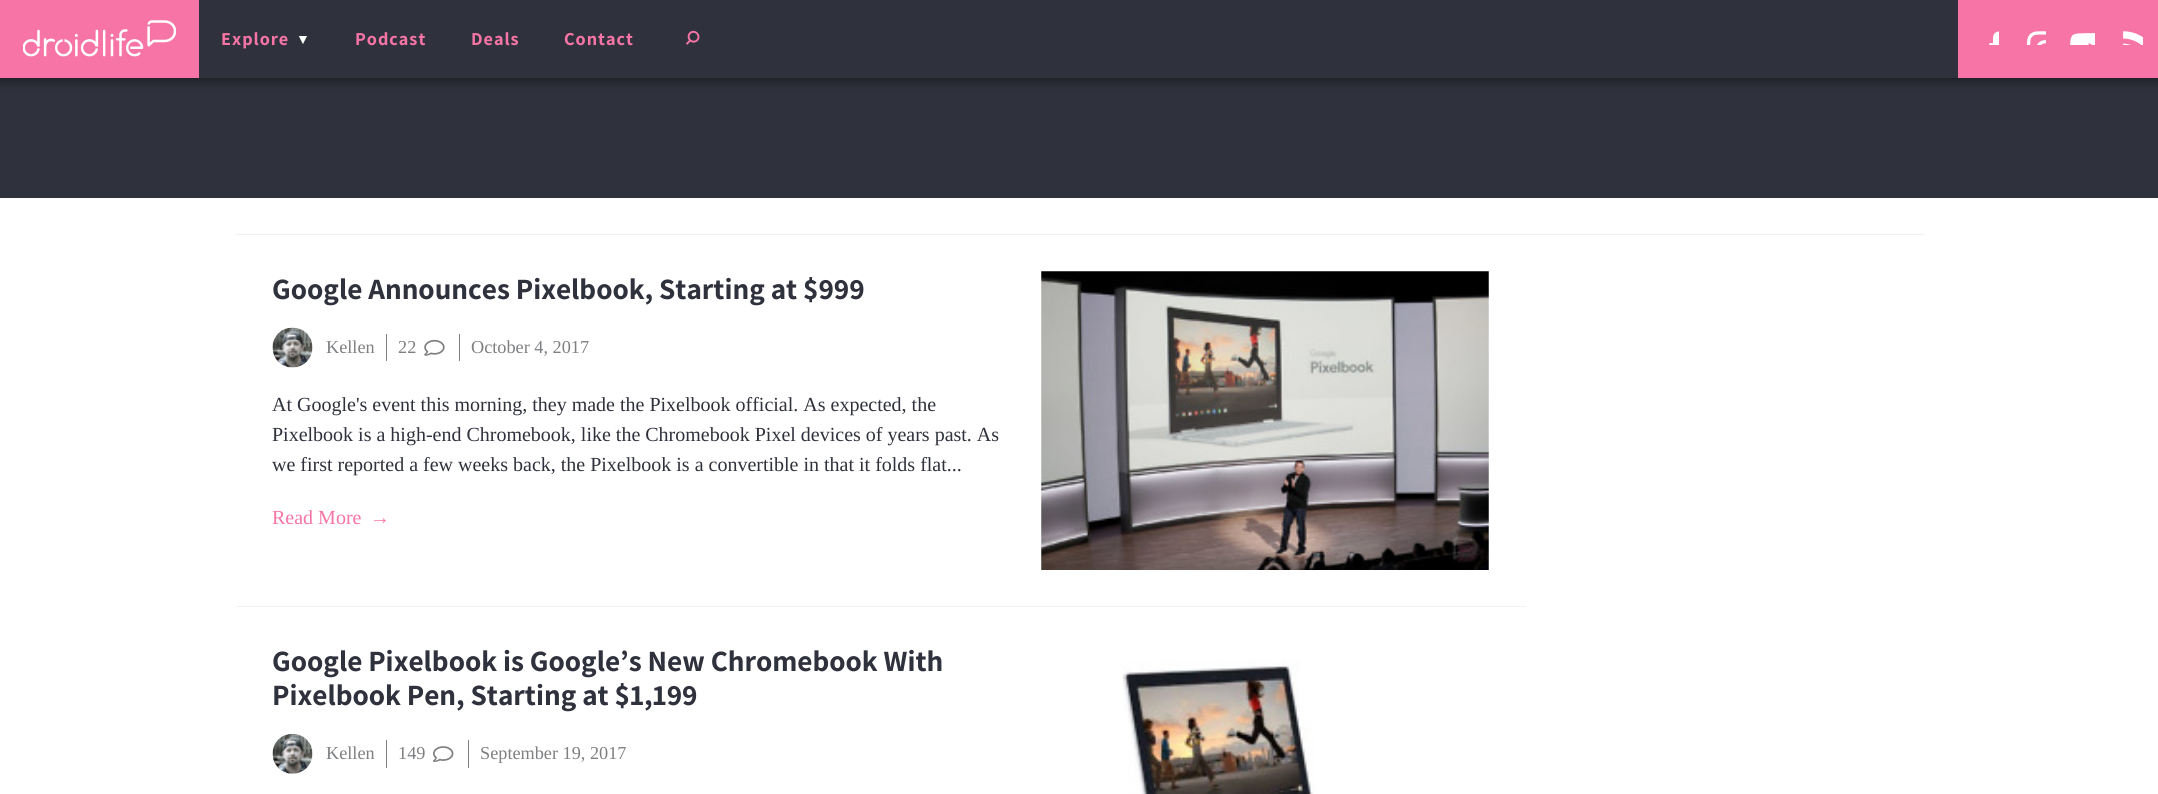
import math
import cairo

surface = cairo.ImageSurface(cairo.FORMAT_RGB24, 2158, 794)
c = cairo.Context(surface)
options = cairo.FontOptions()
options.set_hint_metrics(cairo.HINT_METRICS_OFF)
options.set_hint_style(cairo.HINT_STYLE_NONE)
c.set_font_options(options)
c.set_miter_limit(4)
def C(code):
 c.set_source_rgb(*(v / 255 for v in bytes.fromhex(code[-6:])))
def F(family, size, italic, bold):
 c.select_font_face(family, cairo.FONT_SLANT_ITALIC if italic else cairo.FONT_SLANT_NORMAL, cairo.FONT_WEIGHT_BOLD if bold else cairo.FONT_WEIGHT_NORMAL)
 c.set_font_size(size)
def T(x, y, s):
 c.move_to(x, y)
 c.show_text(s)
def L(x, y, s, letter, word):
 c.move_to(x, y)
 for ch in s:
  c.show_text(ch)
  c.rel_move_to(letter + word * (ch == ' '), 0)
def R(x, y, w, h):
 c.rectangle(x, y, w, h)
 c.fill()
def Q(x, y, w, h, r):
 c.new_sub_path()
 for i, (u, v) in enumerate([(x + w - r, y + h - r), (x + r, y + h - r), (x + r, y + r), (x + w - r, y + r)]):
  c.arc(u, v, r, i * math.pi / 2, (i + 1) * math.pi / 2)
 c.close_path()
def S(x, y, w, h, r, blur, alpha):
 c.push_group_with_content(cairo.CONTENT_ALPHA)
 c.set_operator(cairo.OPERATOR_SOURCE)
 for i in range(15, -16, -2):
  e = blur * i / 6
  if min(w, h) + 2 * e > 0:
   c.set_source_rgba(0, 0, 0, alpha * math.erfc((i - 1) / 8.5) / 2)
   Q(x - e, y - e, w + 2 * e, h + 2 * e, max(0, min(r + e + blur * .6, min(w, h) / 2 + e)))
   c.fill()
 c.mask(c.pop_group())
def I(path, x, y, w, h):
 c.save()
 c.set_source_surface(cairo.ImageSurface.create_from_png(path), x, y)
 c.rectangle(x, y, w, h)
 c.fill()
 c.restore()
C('ffffff')
c.paint()
C('2f313c')
R(0,78,2158,120)
C('000000')
S(-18,-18,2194,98,0,6,.5)
C('f674a6')
R(0,0,199,78)
I('1.png',23,20,153,37)
C('2f313c')
R(199,0,1759,78)
F('Assistant ExtraLight',18.25,0,0)
C('f674a6')
L(221,45,'Explore',1,0)
F('Liberation Sans',14,0,0)
C('ffffff')
L(296,44,'▼',1,0)
F('Assistant ExtraLight',18.25,0,0)
C('f674a6')
L(355,45,'Podcast',1,0)
L(471,45,'Deals',1,0)
L(564,45,'Contact',1,0)
I('2.png',685,30,15,15)
R(1958,0,200,78)
I('3.png',1989,31,10,14)
I('4.png',2026,31,20,14)
I('5.png',2070,33,25,12)
I('6.png',2123,31,20,14)
C('f2f2f3')
R(236,234,1688,1)
F('Assistant ExtraLight',29.45,0,0)
C('2f313c')
T(272,299,'Google Announces Pixelbook, Starting at $999')
I('7.png',272,327,41,41)
F('Liberation Serif',18.25,0,0)
C('7e7f81')
T(326,353,'Kellen')
R(386,334,1,27)
T(398,353,'22')
I('8.png',424,339,21,17)
R(459,334,1,27)
T(471,353,'October 4, 2017')
F('Liberation Serif',20,0,0)
C('2f313c')
T(272,411,'At Google\'s event this morning, they made the Pixelbook official. As expected, the')
T(272,441,'Pixelbook is a high-end Chromebook, like the Chromebook Pixel devices of years past. As')
T(272,471,'we first reported a few weeks back, the Pixelbook is a convertible in that it folds flat...')
C('f674a6')
T(272,524,'Read More')
T(370,524,'→')
I('9.png',1041,271,448,299)
C('f2f2f3')
R(236,606,1290,1)
F('Assistant ExtraLight',29.45,0,0)
C('2f313c')
T(272,671,'Google Pixelbook is Google’s New Chromebook With')
T(272,705,'Pixelbook Pen, Starting at $1,199')
I('10.png',272,733,41,41)
F('Liberation Serif',18.25,0,0)
C('7e7f81')
T(326,759,'Kellen')
R(386,740,1,28)
T(398,759,'149')
I('11.png',433,746,21,16)
R(468,740,1,28)
T(480,759,'September 19, 2017')
I('12.png',1122,660,192,134)
surface.write_to_png('o.png')
